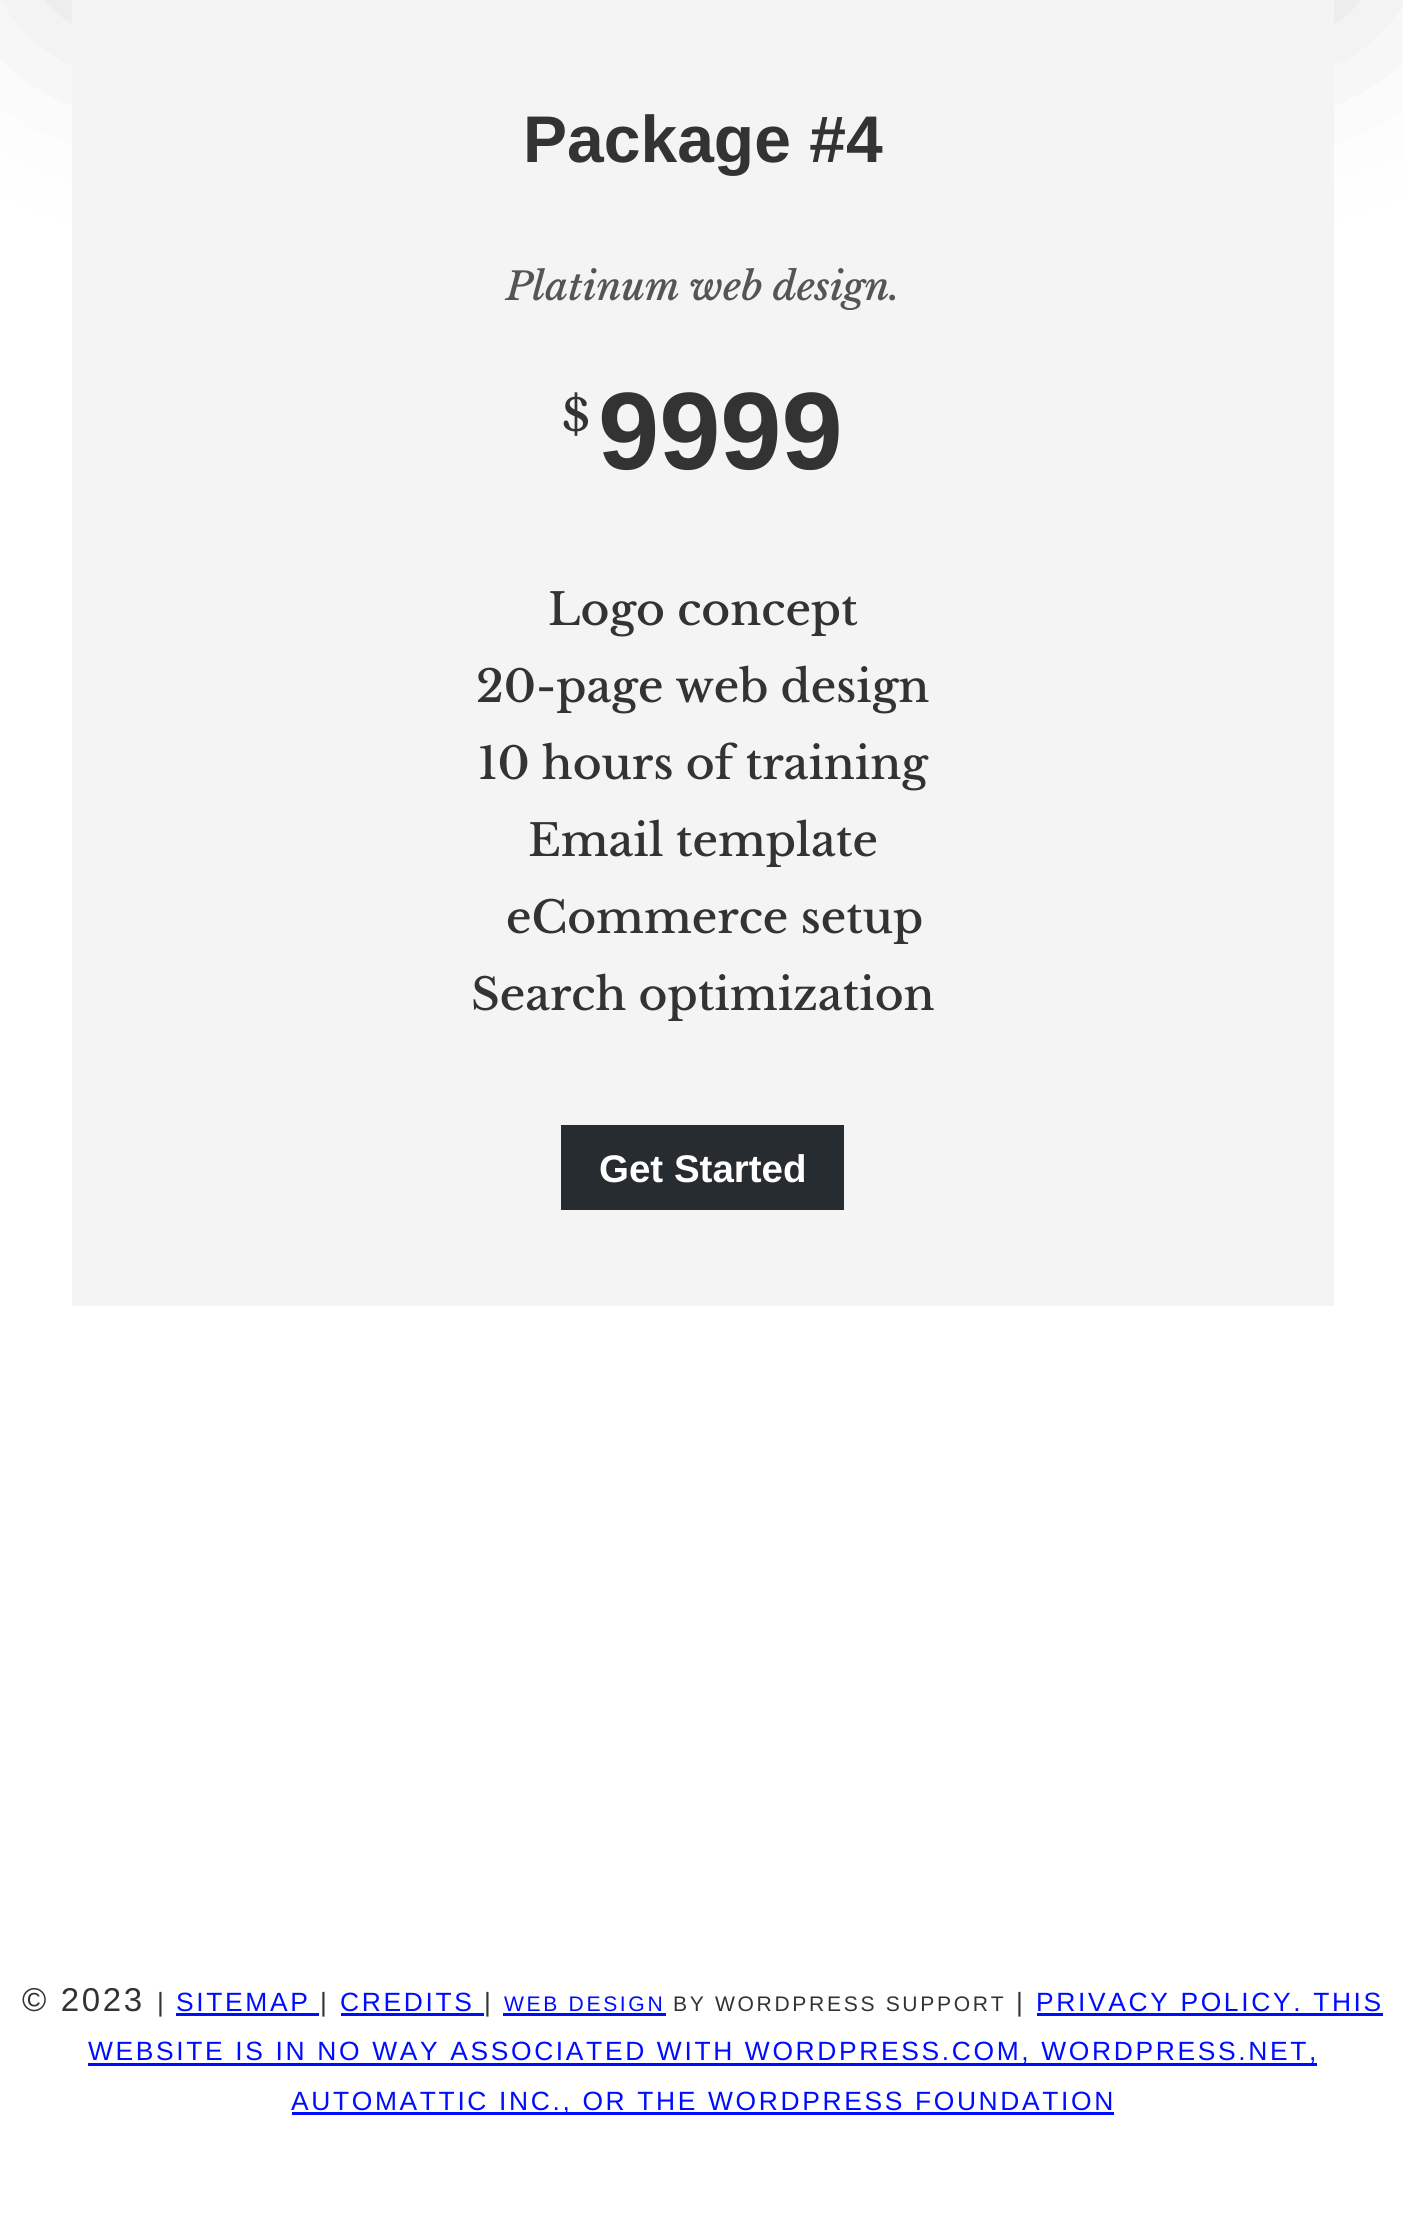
import math
import cairo

surface = cairo.ImageSurface(cairo.FORMAT_RGB24, 1403, 2217)
c = cairo.Context(surface)
options = cairo.FontOptions()
options.set_hint_metrics(cairo.HINT_METRICS_OFF)
options.set_hint_style(cairo.HINT_STYLE_NONE)
c.set_font_options(options)
c.set_miter_limit(4)
def C(code):
 c.set_source_rgb(*(v / 255 for v in bytes.fromhex(code[-6:])))
def F(family, size, italic, bold):
 c.select_font_face(family, cairo.FONT_SLANT_ITALIC if italic else cairo.FONT_SLANT_NORMAL, cairo.FONT_WEIGHT_BOLD if bold else cairo.FONT_WEIGHT_NORMAL)
 c.set_font_size(size)
def T(x, y, s):
 c.move_to(x, y)
 c.show_text(s)
def L(x, y, s, letter, word):
 c.move_to(x, y)
 for ch in s:
  c.show_text(ch)
  c.rel_move_to(letter + word * (ch == ' '), 0)
def R(x, y, w, h):
 c.rectangle(x, y, w, h)
 c.fill()
def Q(x, y, w, h, r):
 c.new_sub_path()
 for i, (u, v) in enumerate([(x + w - r, y + h - r), (x + r, y + h - r), (x + r, y + r), (x + w - r, y + r)]):
  c.arc(u, v, r, i * math.pi / 2, (i + 1) * math.pi / 2)
 c.close_path()
def S(x, y, w, h, r, blur, alpha):
 c.push_group_with_content(cairo.CONTENT_ALPHA)
 c.set_operator(cairo.OPERATOR_SOURCE)
 for i in range(15, -16, -2):
  e = blur * i / 6
  if min(w, h) + 2 * e > 0:
   c.set_source_rgba(0, 0, 0, alpha * math.erfc((i - 1) / 8.5) / 2)
   Q(x - e, y - e, w + 2 * e, h + 2 * e, max(0, min(r + e + blur * .6, min(w, h) / 2 + e)))
   c.fill()
 c.mask(c.pop_group())
C('ffffff')
c.paint()
C('000000')
S(72,-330,1262,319,0,110,.2)
C('f4f4f4')
R(72,0,1262,1306)
F('Liberation Sans',66,0,1)
C('333333')
T(523,162,'Package #4')
F('Libre Baskerville Medium',38.5,1,0)
C('555555')
T(506,300,'Platinum web design.')
F('Libre Baskerville Medium',44,0,0)
C('333333')
T(562,431,'$')
F('Liberation Sans',110,0,1)
T(598,469,'9999')
F('Libre Baskerville Medium',44,0,0)
T(548,625,'Logo concept')
T(476,702,'20-page web design')
T(478,779,'10 hours of training')
T(528,856,'Email template')
T(506,933,'eCommerce setup')
T(471,1010,'Search optimization')
C('272c30')
R(561,1125,283,85)
F('Liberation Sans',38.5,0,1)
C('ffffff')
T(599,1182,'Get Started')
F('Liberation Sans',33,0,0)
C('333333')
L(22,2011,'© 2023',2.65,0)
F('Liberation Sans',26.4,0,0)
L(157,2011,'|',2.65,0)
C('000cff')
L(176,2011,'SITEMAP',2.65,0)
C('333333')
L(320,2011,'|',2.65,0)
C('000cff')
R(176,2013,143,3)
L(340,2011,'CREDITS',2.65,0)
C('333333')
L(484,2011,'|',2.65,0)
C('000cff')
R(341,2013,143,3)
F('Liberation Sans',21.1,0,0)
L(504,2011,'WEB DESIGN',2.65,0)
R(503,2013,163,3)
C('333333')
L(673,2011,'BY WORDPRESS SUPPORT',2.65,0)
F('Liberation Sans',26.4,0,0)
L(1016,2011,'|',2.65,0)
C('000cff')
L(1036,2011,'PRIVACY POLICY. THIS',2.65,0)
R(1037,2013,346,3)
R(88,2063,1229,3)
L(88,2060,'WEBSITE IS IN NO WAY ASSOCIATED WITH WORDPRESS.COM, WORDPRESS.NET,',2.65,0)
R(292,2112,822,3)
L(291,2110,'AUTOMATTIC INC., OR THE WORDPRESS FOUNDATION',2.65,0)
surface.write_to_png('o.png')
